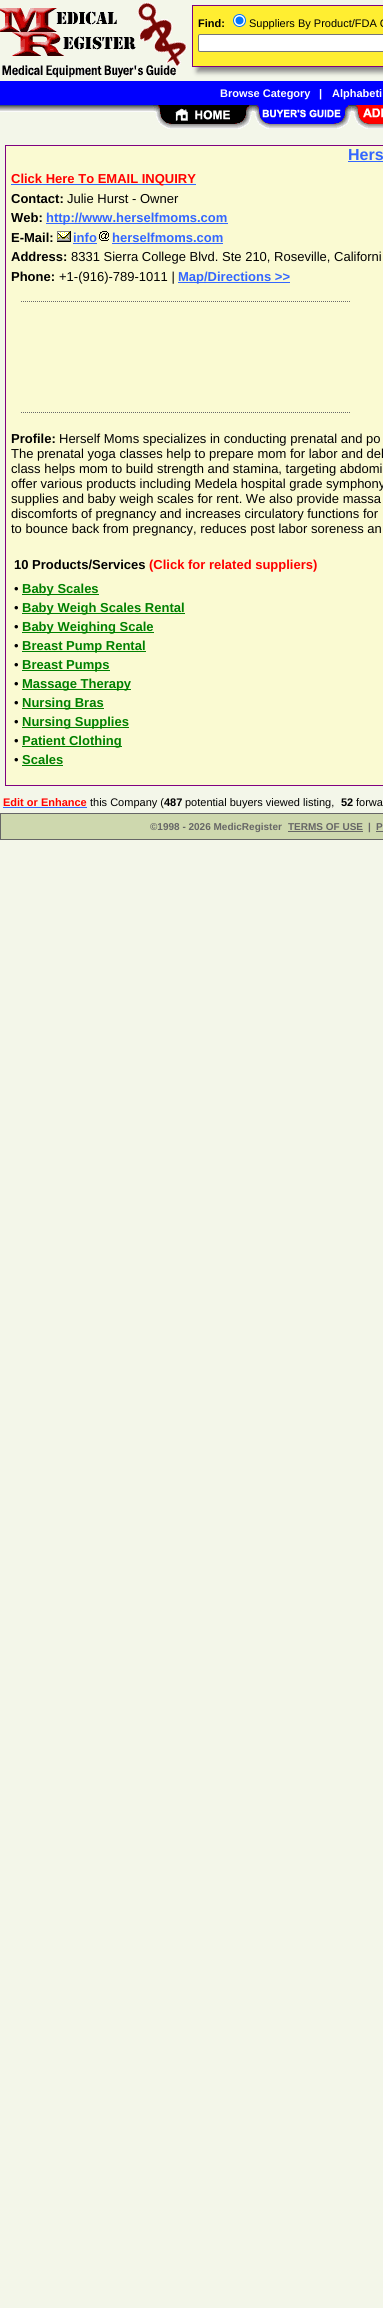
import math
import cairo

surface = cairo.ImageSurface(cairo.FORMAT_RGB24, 383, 2308)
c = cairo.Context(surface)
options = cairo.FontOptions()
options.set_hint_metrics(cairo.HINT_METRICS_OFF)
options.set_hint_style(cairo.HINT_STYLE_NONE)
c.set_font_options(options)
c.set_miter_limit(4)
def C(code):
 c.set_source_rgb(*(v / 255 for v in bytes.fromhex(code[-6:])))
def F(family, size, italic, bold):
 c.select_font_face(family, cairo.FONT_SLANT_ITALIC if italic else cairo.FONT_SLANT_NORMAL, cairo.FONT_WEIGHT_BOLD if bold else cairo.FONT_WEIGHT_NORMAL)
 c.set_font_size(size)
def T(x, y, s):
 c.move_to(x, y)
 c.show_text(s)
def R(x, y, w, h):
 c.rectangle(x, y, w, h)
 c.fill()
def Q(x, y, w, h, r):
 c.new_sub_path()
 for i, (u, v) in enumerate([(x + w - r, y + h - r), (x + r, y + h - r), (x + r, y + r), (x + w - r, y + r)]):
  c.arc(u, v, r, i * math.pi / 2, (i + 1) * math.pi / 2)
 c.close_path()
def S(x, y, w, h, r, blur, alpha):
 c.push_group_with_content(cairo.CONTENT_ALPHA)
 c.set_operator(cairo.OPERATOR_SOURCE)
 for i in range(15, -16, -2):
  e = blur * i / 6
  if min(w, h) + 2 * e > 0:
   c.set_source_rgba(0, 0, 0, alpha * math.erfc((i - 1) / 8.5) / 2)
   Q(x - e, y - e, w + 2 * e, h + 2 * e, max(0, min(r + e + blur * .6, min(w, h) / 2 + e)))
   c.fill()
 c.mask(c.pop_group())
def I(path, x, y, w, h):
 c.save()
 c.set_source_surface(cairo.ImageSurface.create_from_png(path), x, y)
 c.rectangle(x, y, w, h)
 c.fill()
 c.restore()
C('f3f6e9')
c.paint()
I('1.png',0,2,187,76)
C('888888')
S(197,10,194,62,0,2.5,1)
C('ffee31')
c.rectangle(192.5,5.5,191,61)
c.fill_preserve()
C('800080')
c.set_line_width(1)
c.stroke()
F('Liberation Sans',11,0,1)
C('000000')
T(198,27,'Find:')
C('ffffff')
c.new_path()
c.arc(239.5,20.5,6,0,2 * math.pi)
c.fill_preserve()
C('0075ff')
c.stroke()
c.arc(239.5,20.5,4,0,2 * math.pi)
c.fill()
F('Liberation Sans',11,0,0)
C('000000')
T(249,27,'Suppliers By Product/FDA C')
C('ffffff')
Q(198.5,34.5,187,17,1.5)
c.fill_preserve()
C('767676')
c.stroke()
C('0000ff')
R(0,81,383,24)
F('Liberation Sans',11,0,1)
C('ffffff')
T(220,97,'Browse Category')
T(319,97,'|')
T(332,97,'Alphabeti')
I('2.png',0,105,153,7)
I('3.png',153,105,99,24)
I('4.png',252,105,99,24)
I('5.png',351,105,32,24)
C('fafad2')
c.rectangle(5.5,145.5,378,640)
c.fill_preserve()
C('800080')
c.stroke()
F('Liberation Sans',16,0,1)
C('3366ff')
T(348,160,'Hers')
R(348,161,35,1)
R(11,184,185,1)
F('Liberation Sans',13,0,1)
C('ff0000')
T(11,183,'Click Here To EMAIL INQUIRY')
C('000000')
T(11,203,'Contact:')
F('Liberation Sans',13,0,0)
T(67,203,'Julie Hurst - Owner')
F('Liberation Sans',13,0,1)
T(11,222,'Web:')
C('3366ff')
R(46,223,182,1)
T(46,222,'http://www.herselfmoms.com')
C('000000')
T(11,242,'E-Mail:')
I('6.png',57,231,14,11)
C('3366ff')
T(73,242,'info')
R(73,243,24,1)
I('7.png',99,231,10,10)
T(112,242,'herselfmoms.com')
R(112,243,111,1)
C('000000')
T(11,261,'Address:')
F('Liberation Sans',13,0,0)
T(71,261,'8331 Sierra College Blvd. Ste 210, Roseville, Californi')
F('Liberation Sans',13,0,1)
T(11,281,'Phone:')
F('Liberation Sans',13,0,0)
T(59,281,'+1-(916)-789-1011 |')
C('3366ff')
R(178,282,112,1)
F('Liberation Sans',13,0,1)
T(178,281,'Map/Directions >>')
c.new_path()
c.move_to(21,301.5)
c.line_to(351,301.5)
C('696969')
c.set_dash([1,1])
c.stroke()
c.new_path()
c.move_to(21,412.5)
c.line_to(351,412.5)
c.stroke()
C('000000')
T(11,443,'Profile:')
F('Liberation Sans',13,0,0)
T(59,443,'Herself Moms specializes in conducting prenatal and po')
T(11,458,'The prenatal yoga classes help to prepare mom for labor and del')
T(11,473,'class helps mom to build strength and stamina, targeting abdomi')
T(11,488,'offer various products including Medela hospital grade symphony')
T(11,503,'supplies and baby weigh scales for rent. We also provide massa')
T(11,518,'discomforts of pregnancy and increases circulatory functions for')
T(11,533,'to bounce back from pregnancy, reduces post labor soreness an')
F('Liberation Sans',13,0,1)
T(14,569,'10 Products/Services')
C('ff0000')
T(149,569,'(Click for related suppliers)')
F('Liberation Sans',13,0,0)
C('000000')
T(14,593,'•')
C('008000')
R(22,594,77,1)
F('Liberation Sans',13,0,1)
T(22,593,'Baby Scales')
F('Liberation Sans',13,0,0)
C('000000')
T(14,612,'•')
C('008000')
R(22,613,163,1)
F('Liberation Sans',13,0,1)
T(22,612,'Baby Weigh Scales Rental')
F('Liberation Sans',13,0,0)
C('000000')
T(14,631,'•')
C('008000')
R(22,632,132,1)
F('Liberation Sans',13,0,1)
T(22,631,'Baby Weighing Scale')
F('Liberation Sans',13,0,0)
C('000000')
T(14,650,'•')
C('008000')
R(22,651,124,1)
F('Liberation Sans',13,0,1)
T(22,650,'Breast Pump Rental')
F('Liberation Sans',13,0,0)
C('000000')
T(14,669,'•')
C('008000')
R(22,670,88,1)
F('Liberation Sans',13,0,1)
T(22,669,'Breast Pumps')
F('Liberation Sans',13,0,0)
C('000000')
T(14,688,'•')
C('008000')
R(22,689,109,1)
F('Liberation Sans',13,0,1)
T(22,688,'Massage Therapy')
F('Liberation Sans',13,0,0)
C('000000')
T(14,707,'•')
C('008000')
R(22,708,82,1)
F('Liberation Sans',13,0,1)
T(22,707,'Nursing Bras')
F('Liberation Sans',13,0,0)
C('000000')
T(14,726,'•')
C('008000')
R(22,727,107,1)
F('Liberation Sans',13,0,1)
T(22,726,'Nursing Supplies')
F('Liberation Sans',13,0,0)
C('000000')
T(14,745,'•')
C('008000')
R(22,746,100,1)
F('Liberation Sans',13,0,1)
T(22,745,'Patient Clothing')
F('Liberation Sans',13,0,0)
C('000000')
T(14,764,'•')
F('Liberation Sans',13,0,1)
C('008000')
T(22,764,'Scales')
R(22,765,41,1)
F('Liberation Sans',11,0,1)
C('ff0000')
T(3,806,'Edit or Enhance')
C('3366ff')
R(3,807,84,1)
F('Liberation Sans',11,0,0)
C('000000')
T(90,806,'this Company (')
F('Liberation Sans',11,0,1)
T(164,806,'487')
F('Liberation Sans',11,0,0)
T(185,806,'potential buyers viewed listing,')
F('Liberation Sans',11,0,1)
T(341,806,'52')
F('Liberation Sans',11,0,0)
T(356,806,'forwa')
C('ced8ae')
c.rectangle(.5,813.5,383,26)
c.fill_preserve()
C('666666')
c.set_dash([])
c.stroke()
F('Liberation Sans',10,0,1)
T(150,830,'©1998 - 2026 MedicRegister')
T(288,830,'TERMS OF USE')
R(288,831,75,1)
T(368,830,'|')
T(376,830,'P')
R(376,831,7,1)
surface.write_to_png('o.png')
